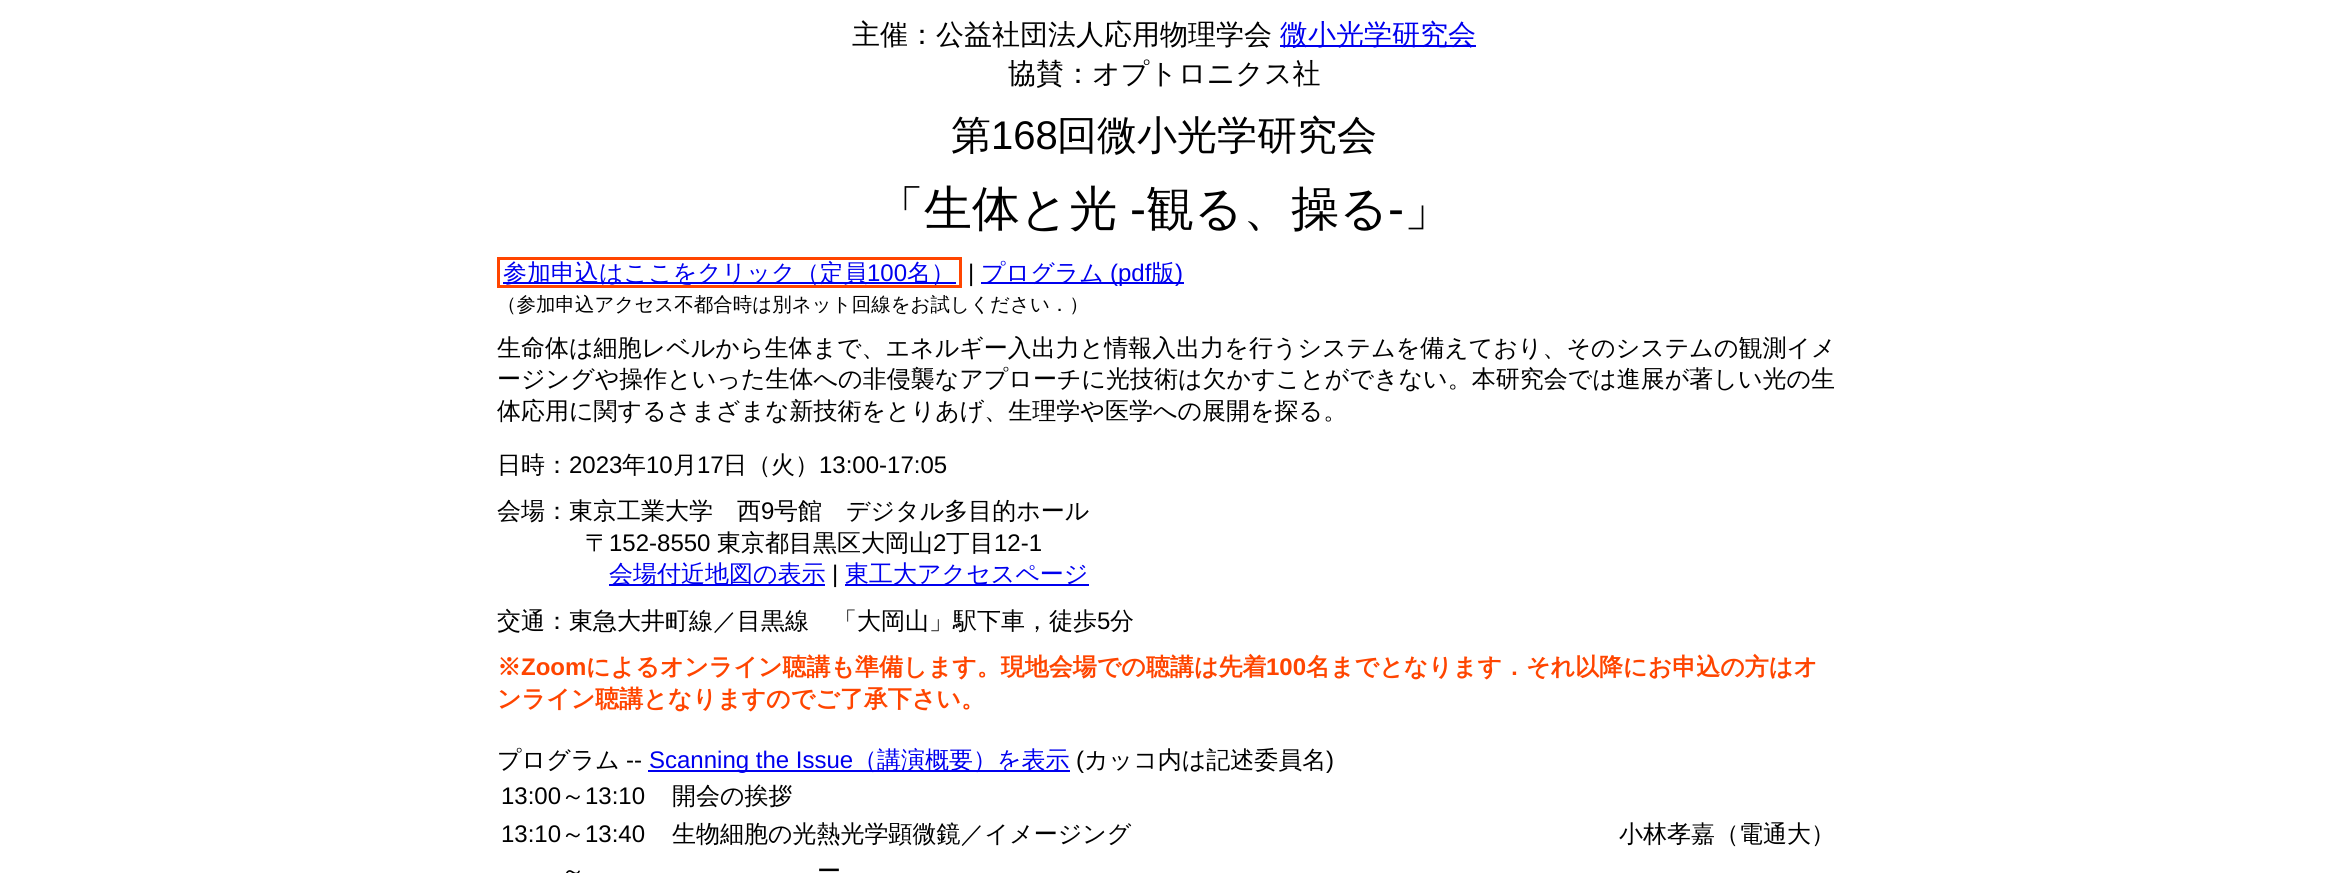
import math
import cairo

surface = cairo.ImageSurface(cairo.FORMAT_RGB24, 2328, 873)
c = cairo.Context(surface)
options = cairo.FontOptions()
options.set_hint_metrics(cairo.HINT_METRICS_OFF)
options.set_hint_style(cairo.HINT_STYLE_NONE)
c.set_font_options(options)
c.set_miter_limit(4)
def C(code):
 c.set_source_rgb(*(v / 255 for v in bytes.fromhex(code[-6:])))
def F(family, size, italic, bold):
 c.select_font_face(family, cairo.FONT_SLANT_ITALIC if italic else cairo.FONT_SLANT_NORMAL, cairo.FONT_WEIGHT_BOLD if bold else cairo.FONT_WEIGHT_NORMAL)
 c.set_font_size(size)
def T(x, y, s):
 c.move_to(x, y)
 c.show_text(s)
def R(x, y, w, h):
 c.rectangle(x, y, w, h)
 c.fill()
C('ffffff')
c.paint()
F('WenQuanYi Zen Hei Medium',28,0,0)
C('000000')
T(852,44,'主催：公益社団法人応用物理学会')
C('0000ee')
R(1280,45,196,2)
T(1280,44,'微小光学研究会')
C('000000')
T(1008,83,'協賛：オプトロニクス社')
F('WenQuanYi Zen Hei Medium',40,0,0)
T(951,149,'第')
F('Liberation Sans',40,0,0)
T(991,149,'168')
F('WenQuanYi Zen Hei Medium',40,0,0)
T(1057,149,'回微小光学研究会')
F('WenQuanYi Zen Hei Medium',48,0,0)
T(876,225,'「生体と光')
F('Liberation Sans',48,0,0)
T(1130,225,'-')
F('WenQuanYi Zen Hei Medium',48,0,0)
T(1146,225,'観る、操る')
F('Liberation Sans',48,0,0)
T(1388,225,'-')
F('WenQuanYi Zen Hei Medium',48,0,0)
T(1404,225,'」')
c.rectangle(498.5,258.5,462,28)
C('ff4500')
c.set_line_width(3)
c.stroke()
C('0000ee')
R(503,282,453,2)
F('WenQuanYi Zen Hei Medium',24,0,0)
T(503,281,'参加申込はここをクリック（定員')
F('Liberation Sans',24,0,0)
T(867,281,'100')
F('WenQuanYi Zen Hei Medium',24,0,0)
T(907,281,'名）')
F('Liberation Sans',24,0,0)
C('000000')
T(968,281,'|')
C('0000ee')
R(981,282,203,2)
F('WenQuanYi Zen Hei Medium',24,0,0)
T(981,281,'プログラム')
F('Liberation Sans',24,0,0)
T(1110,281,'(pdf')
F('WenQuanYi Zen Hei Medium',24,0,0)
T(1151,281,'版')
F('Liberation Sans',24,0,0)
T(1175,281,')')
F('WenQuanYi Zen Hei Medium',19.5,0,0)
C('000000')
T(497,311,'（参加申込アクセス不都合時は別ネット回線をお試しください．）')
F('WenQuanYi Zen Hei Medium',24,0,0)
T(497,356,'生命体は細胞レベルから生体まで、エネルギー入出力と情報入出力を行うシステムを備えており、そのシステムの観測イメ')
T(497,387,'ージングや操作といった生体への非侵襲なアプローチに光技術は欠かすことができない。本研究会では進展が著しい光の生')
T(497,419,'体応用に関するさまざまな新技術をとりあげ、生理学や医学への展開を探る。')
T(497,473,'日時：')
F('Liberation Sans',24,0,0)
T(569,473,'2023')
F('WenQuanYi Zen Hei Medium',24,0,0)
T(622,473,'年')
F('Liberation Sans',24,0,0)
T(646,473,'10')
F('WenQuanYi Zen Hei Medium',24,0,0)
T(673,473,'月')
F('Liberation Sans',24,0,0)
T(697,473,'17')
F('WenQuanYi Zen Hei Medium',24,0,0)
T(723,473,'日（火）')
F('Liberation Sans',24,0,0)
T(819,473,'13:00-17:05')
F('WenQuanYi Zen Hei Medium',24,0,0)
T(497,519,'会場：東京工業大学　西')
F('Liberation Sans',24,0,0)
T(761,519,'9')
F('WenQuanYi Zen Hei Medium',24,0,0)
T(774,519,'号館　デジタル多目的ホール')
T(585,551,'〒')
F('Liberation Sans',24,0,0)
T(609,551,'152-8550')
F('WenQuanYi Zen Hei Medium',24,0,0)
T(717,551,'東京都目黒区大岡山')
F('Liberation Sans',24,0,0)
T(933,551,'2')
F('WenQuanYi Zen Hei Medium',24,0,0)
T(946,551,'丁目')
F('Liberation Sans',24,0,0)
T(994,551,'12-1')
C('0000ee')
R(609,584,216,2)
F('WenQuanYi Zen Hei Medium',24,0,0)
T(609,582,'会場付近地図の表示')
F('Liberation Sans',24,0,0)
C('000000')
T(832,582,'|')
C('0000ee')
R(845,584,244,2)
F('WenQuanYi Zen Hei Medium',24,0,0)
T(845,582,'東工大アクセスページ')
C('000000')
T(497,629,'交通：東急大井町線／目黒線　「大岡山」駅下車，徒歩')
F('Liberation Sans',24,0,0)
T(1097,629,'5')
F('WenQuanYi Zen Hei Medium',24,0,0)
T(1110,629,'分')
F('WenQuanYi Zen Hei',24,0,1)
C('ff4500')
T(497,675,'※')
F('Liberation Sans',24,0,1)
T(521,675,'Zoom')
F('WenQuanYi Zen Hei',24,0,1)
T(586,675,'によるオンライン聴講も準備します。現地会場での聴講は先着')
F('Liberation Sans',24,0,1)
T(1266,675,'100')
F('WenQuanYi Zen Hei',24,0,1)
T(1306,675,'名までとなります．それ以降にお申込の方はオ')
T(497,707,'ンライン聴講となりますのでご了承下さい。')
F('WenQuanYi Zen Hei Medium',24,0,0)
C('000000')
T(497,768,'プログラム')
F('Liberation Sans',24,0,0)
T(626,768,'--')
C('0000ee')
R(648,770,422,2)
T(649,768,'Scanning the Issue')
F('WenQuanYi Zen Hei Medium',24,0,0)
T(853,768,'（講演概要）を表示')
F('Liberation Sans',24,0,0)
C('000000')
T(1076,768,'(')
F('WenQuanYi Zen Hei Medium',24,0,0)
T(1084,768,'カッコ内は記述委員名')
F('Liberation Sans',24,0,0)
T(1326,768,')')
T(501,804,'13:00')
F('WenQuanYi Zen Hei Medium',24,0,0)
T(561,804,'～')
F('Liberation Sans',24,0,0)
T(585,804,'13:10')
F('WenQuanYi Zen Hei Medium',24,0,0)
T(672,804,'開会の挨拶')
F('Liberation Sans',24,0,0)
T(501,842,'13:10')
F('WenQuanYi Zen Hei Medium',24,0,0)
T(561,842,'～')
F('Liberation Sans',24,0,0)
T(585,842,'13:40')
F('WenQuanYi Zen Hei Medium',24,0,0)
T(672,842,'生物細胞の光熱光学顕微鏡／イメージング')
T(1619,842,'小林孝嘉（電通大）')
T(561,879,'～')
T(817,879,'ー')
surface.write_to_png('o.png')
